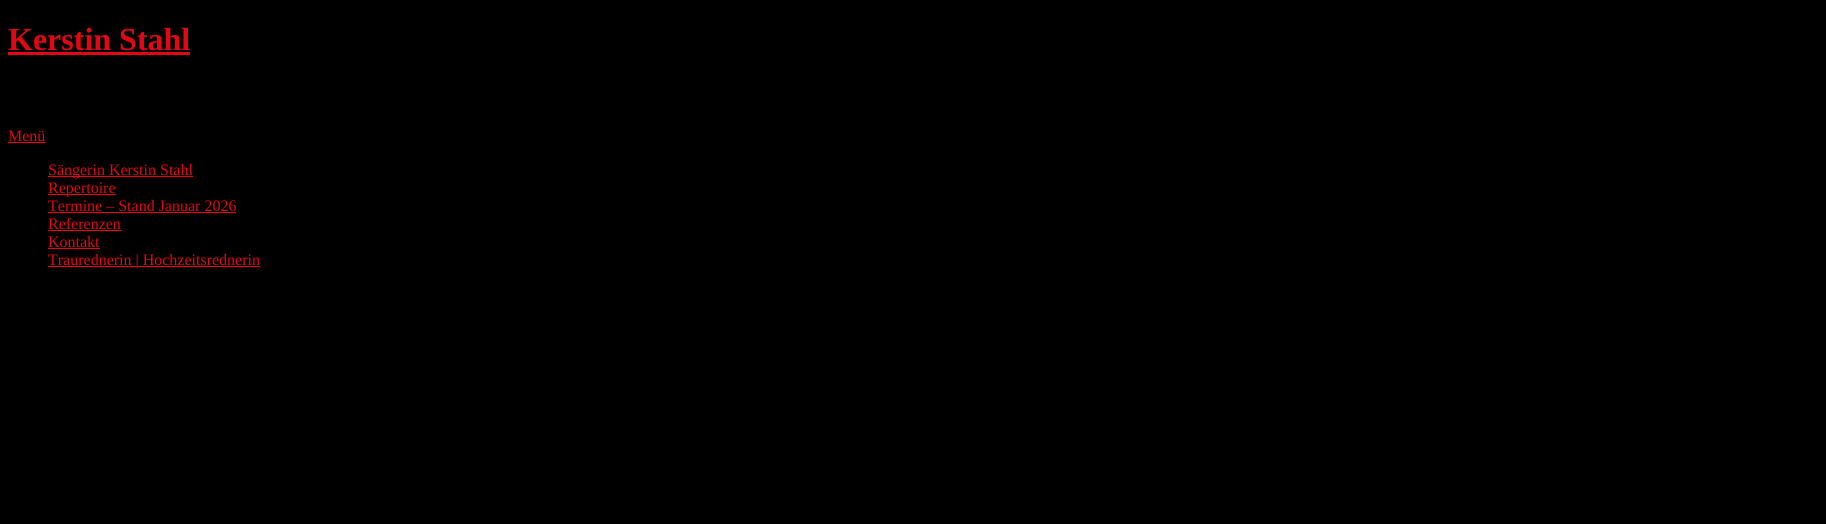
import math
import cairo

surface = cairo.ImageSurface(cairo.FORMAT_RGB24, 1826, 524)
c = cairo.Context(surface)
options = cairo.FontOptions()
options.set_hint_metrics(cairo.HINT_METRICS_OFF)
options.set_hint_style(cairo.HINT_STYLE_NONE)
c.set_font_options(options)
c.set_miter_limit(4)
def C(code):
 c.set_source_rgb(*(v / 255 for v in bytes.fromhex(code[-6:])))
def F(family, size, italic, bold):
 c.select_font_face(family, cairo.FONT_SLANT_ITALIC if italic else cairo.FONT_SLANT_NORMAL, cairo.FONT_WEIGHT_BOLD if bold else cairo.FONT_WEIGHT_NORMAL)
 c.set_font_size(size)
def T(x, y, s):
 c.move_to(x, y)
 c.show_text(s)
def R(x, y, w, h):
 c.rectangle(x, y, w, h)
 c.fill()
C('000000')
c.paint()
F('Liberation Serif',32,0,1)
C('e30613')
T(8,50,'Kerstin Stahl')
R(8,52,182,3)
F('Liberation Serif',16,0,0)
T(8,141,'Menü')
R(8,142,37,1)
R(48,176,145,1)
T(48,175,'Sängerin Kerstin Stahl')
R(48,194,68,1)
T(48,193,'Repertoire')
T(48,211,'Termine – Stand Januar 2026')
R(48,212,188,1)
T(48,229,'Referenzen')
R(48,230,73,1)
T(48,247,'Kontakt')
R(48,248,52,1)
R(48,266,212,1)
T(48,265,'Traurednerin | Hochzeitsrednerin')
surface.write_to_png('o.png')
